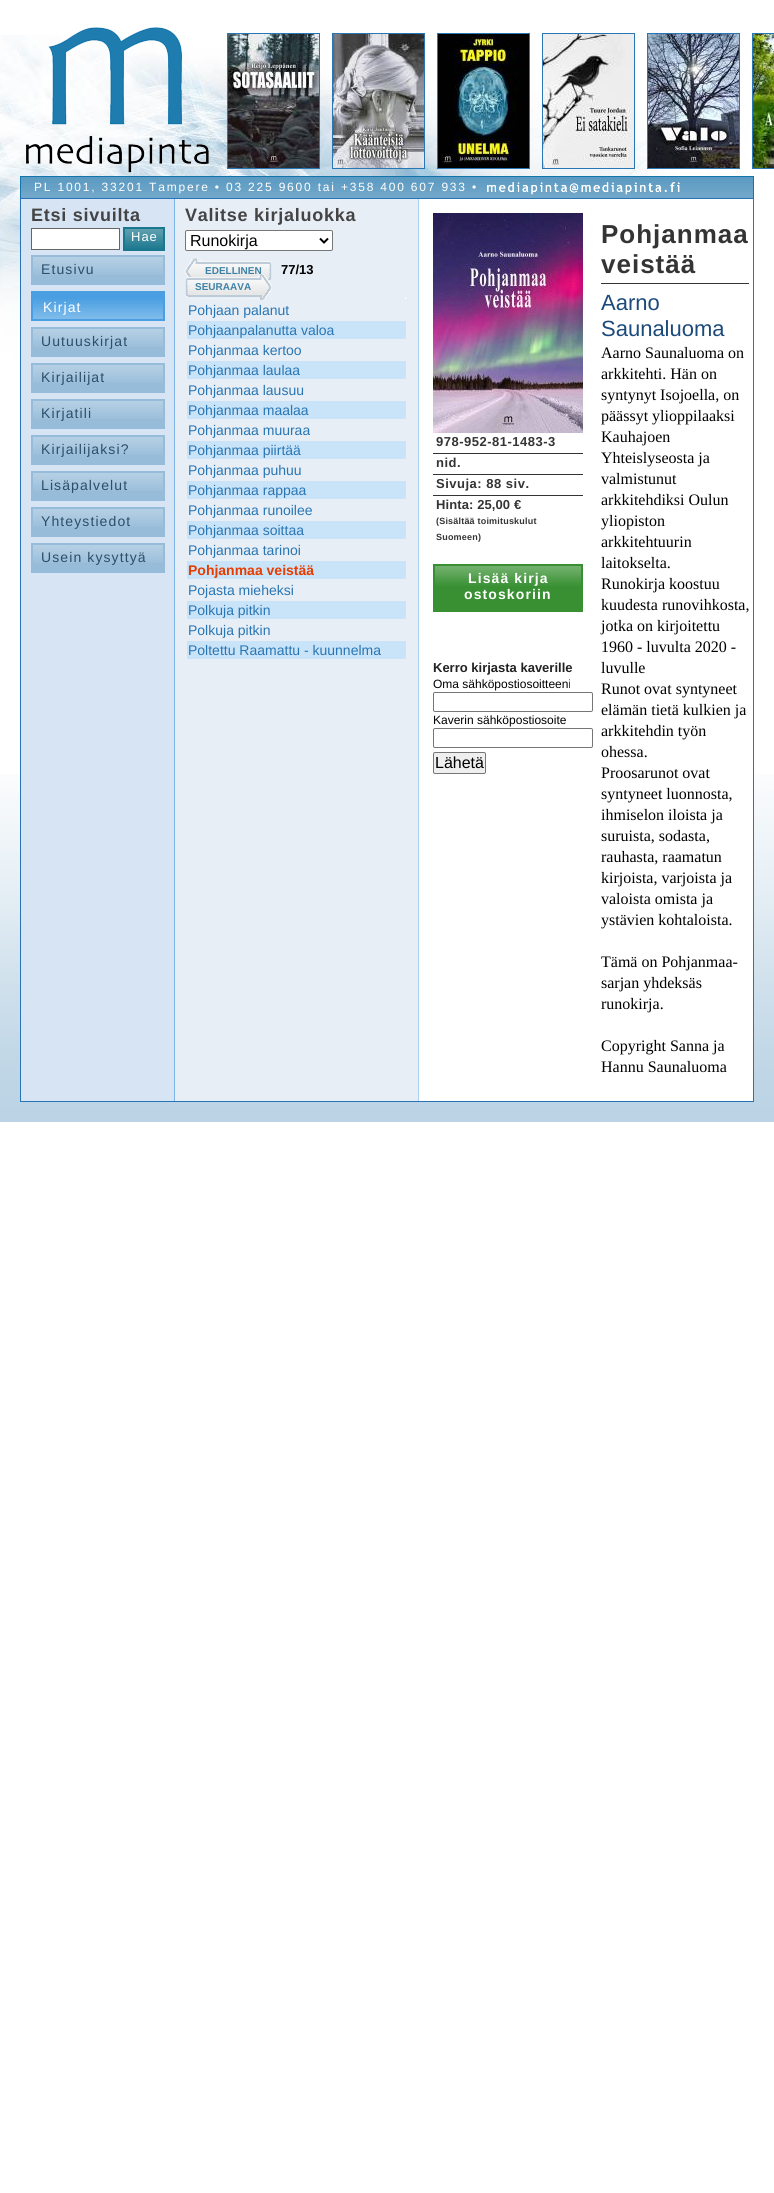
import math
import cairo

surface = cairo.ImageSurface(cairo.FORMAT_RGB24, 774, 2193)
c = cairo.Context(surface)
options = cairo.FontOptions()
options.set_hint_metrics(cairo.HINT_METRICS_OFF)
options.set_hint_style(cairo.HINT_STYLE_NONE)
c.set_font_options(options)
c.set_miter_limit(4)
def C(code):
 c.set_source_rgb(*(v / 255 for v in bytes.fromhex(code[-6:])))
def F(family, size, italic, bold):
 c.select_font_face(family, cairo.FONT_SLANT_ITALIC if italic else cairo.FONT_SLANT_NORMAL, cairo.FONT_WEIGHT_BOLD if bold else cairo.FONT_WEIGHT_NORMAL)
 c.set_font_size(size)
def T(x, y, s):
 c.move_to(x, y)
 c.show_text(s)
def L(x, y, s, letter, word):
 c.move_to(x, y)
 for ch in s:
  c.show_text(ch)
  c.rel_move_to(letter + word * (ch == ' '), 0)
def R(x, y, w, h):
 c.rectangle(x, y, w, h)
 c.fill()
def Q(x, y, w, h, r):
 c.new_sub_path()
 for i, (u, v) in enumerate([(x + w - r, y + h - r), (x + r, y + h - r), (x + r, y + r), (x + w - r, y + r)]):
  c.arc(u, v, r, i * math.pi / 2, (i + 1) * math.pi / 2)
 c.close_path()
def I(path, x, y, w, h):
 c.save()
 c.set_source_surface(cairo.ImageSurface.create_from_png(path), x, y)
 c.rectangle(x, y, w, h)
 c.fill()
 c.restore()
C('ffffff')
c.paint()
I('1.png',0,35,741,413)
I('2.png',0,774,774,348)
I('3.png',26,27,183,146)
c.rectangle(227.5,33.5,92,135)
C('2976b4')
c.set_line_width(1)
c.stroke()
c.rectangle(332.5,33.5,92,135)
c.stroke()
c.rectangle(437.5,33.5,92,135)
c.stroke()
c.rectangle(542.5,33.5,92,135)
c.stroke()
c.rectangle(647.5,33.5,92,135)
c.stroke()
c.rectangle(752.5,33.5,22,135)
c.stroke()
I('4.png',228,34,91,134)
I('5.png',333,34,91,134)
I('6.png',438,34,91,134)
I('7.png',543,34,91,134)
I('8.png',648,34,91,134)
I('9.png',753,34,21,134)
I('10.png',21,177,732,21)
c.rectangle(20.5,176.5,733,22)
C('1275ab')
c.stroke()
F('Liberation Sans',12,0,0)
C('ffffff')
L(34,191,'PL 1001, 33201 Tampere • 03 225 9600 tai +358 400 607 933 •',1.8,0)
I('11.png',487,182,193,13)
R(419,199,334,902)
c.rectangle(20.5,198.5,733,903)
C('2973b8')
c.stroke()
C('d7e4f3')
R(21,199,153,902)
C('7eb5e9')
R(174,199,1,902)
F('Liberation Sans',18,0,1)
C('444444')
L(31,221,'Etsi sivuilta',.75,0)
C('ffffff')
c.rectangle(31.5,228.5,88,21)
c.fill_preserve()
C('666666')
c.stroke()
C('1a778e')
R(125,229,38,20)
I('12.png',125,229,38,20)
c.rectangle(124,228,40,22)
c.set_line_width(2)
c.stroke()
F('Liberation Sans',13,0,0)
C('ffffff')
L(131,241,'Hae',1,0)
C('97bcd9')
R(33,257,130,26)
I('13.png',33,257,130,18)
c.rectangle(32,256,132,28)
c.stroke()
F('Liberation Sans',14,0,0)
C('2c4e6a')
L(41,274,'Etusivu',1.1,0)
C('4a9fe2')
R(33,293,130,26)
I('14.png',33,299,130,20)
c.rectangle(32,292,132,28)
c.stroke()
C('ffffff')
L(43,312,'Kirjat',1.1,0)
C('97bcd9')
R(33,329,130,26)
I('13.png',33,329,130,18)
c.rectangle(32,328,132,28)
c.stroke()
C('2c4e6a')
L(41,346,'Uutuuskirjat',1.1,0)
C('97bcd9')
R(33,365,130,26)
I('13.png',33,365,130,18)
c.rectangle(32,364,132,28)
c.stroke()
C('2c4e6a')
L(41,382,'Kirjailijat',1.1,0)
C('97bcd9')
R(33,401,130,26)
I('13.png',33,401,130,18)
c.rectangle(32,400,132,28)
c.stroke()
C('2c4e6a')
L(41,418,'Kirjatili',1.1,0)
C('97bcd9')
R(33,437,130,26)
I('13.png',33,437,130,18)
c.rectangle(32,436,132,28)
c.stroke()
C('2c4e6a')
L(41,454,'Kirjailijaksi?',1.1,0)
C('97bcd9')
R(33,473,130,26)
I('13.png',33,473,130,18)
c.rectangle(32,472,132,28)
c.stroke()
C('2c4e6a')
L(41,490,'Lisäpalvelut',1.1,0)
C('97bcd9')
R(33,509,130,26)
I('13.png',33,509,130,18)
c.rectangle(32,508,132,28)
c.stroke()
C('2c4e6a')
L(41,526,'Yhteystiedot',1.1,0)
C('97bcd9')
R(33,545,130,26)
I('13.png',33,545,130,18)
c.rectangle(32,544,132,28)
c.stroke()
C('2c4e6a')
L(41,562,'Usein kysyttyä',1.1,0)
C('e7eef6')
R(175,199,243,902)
C('aad2f2')
R(418,199,1,902)
F('Liberation Sans',18,0,1)
C('444444')
L(185,221,'Valitse kirjaluokka',.75,0)
C('ffffff')
Q(185.5,230.5,147,20,1.5)
c.fill_preserve()
C('767676')
c.set_line_width(1)
c.stroke()
c.new_path()
c.move_to(320,238.5)
c.line_to(324,242.5)
c.line_to(328,238.5)
C('000000')
c.set_line_width(2)
c.stroke()
F('Liberation Sans',16,0,0)
T(190,246,'Runokirja')
I('15.png',185,257,87,24)
F('Liberation Sans',13,0,1)
T(281,274,'77/13')
F('Liberation Sans',10,0,1)
C('4082a6')
T(205,274,'EDELLINEN')
I('16.png',185,273,87,27)
T(195,290,'SEURAAVA')
C('ffffff')
R(405,297,1,2)
F('Liberation Sans',14,0,0)
C('2976b4')
T(188,315,'Pohjaan palanut')
C('c9e4f9')
R(187,321,219,18)
C('2976b4')
T(188,335,'Pohjaanpalanutta valoa')
T(188,355,'Pohjanmaa kertoo')
C('c9e4f9')
R(187,361,219,18)
C('2976b4')
T(188,375,'Pohjanmaa laulaa')
T(188,395,'Pohjanmaa lausuu')
C('c9e4f9')
R(187,401,219,18)
C('2976b4')
T(188,415,'Pohjanmaa maalaa')
T(188,435,'Pohjanmaa muuraa')
C('c9e4f9')
R(187,441,219,18)
C('2976b4')
T(188,455,'Pohjanmaa piirtää')
T(188,475,'Pohjanmaa puhuu')
C('c9e4f9')
R(187,481,219,18)
C('2976b4')
T(188,495,'Pohjanmaa rappaa')
T(188,515,'Pohjanmaa runoilee')
C('c9e4f9')
R(187,521,219,18)
C('2976b4')
T(188,535,'Pohjanmaa soittaa')
T(188,555,'Pohjanmaa tarinoi')
C('c9e4f9')
R(187,561,219,18)
F('Liberation Sans',14,0,1)
C('e63c00')
T(188,575,'Pohjanmaa veistää')
F('Liberation Sans',14,0,0)
C('2976b4')
T(188,595,'Pojasta mieheksi')
C('c9e4f9')
R(187,601,219,18)
C('2976b4')
T(188,615,'Polkuja pitkin')
T(188,635,'Polkuja pitkin')
C('c9e4f9')
R(187,641,219,18)
C('2976b4')
T(188,655,'Poltettu Raamattu - kuunnelma')
I('17.png',433,213,150,220)
C('343434')
R(433,453,150,1)
F('Liberation Sans',13,0,1)
L(436,446,'978-952-81-1483-3',.5,0)
R(433,474,150,1)
L(436,467,'nid.',.5,0)
R(433,495,150,1)
L(436,488,'Sivuja: 88 siv.',.5,0)
L(436,509,'Hinta: 25,00 €',.1,0)
F('Liberation Sans',9,0,1)
L(436,524,'(Sisältää toimituskulut',.2,0)
L(436,540,'Suomeen)',.2,0)
C('389032')
R(435,566,146,44)
I('18.png',435,566,146,20)
c.rectangle(434,565,148,46)
c.stroke()
F('Liberation Sans',14,0,1)
C('ffffff')
L(468,583,'Lisää kirja',1.1,0)
L(464,599,'ostoskoriin',1.1,0)
F('Liberation Sans',13,0,1)
C('222222')
T(433,672,'Kerro kirjasta kaverille')
F('Liberation Sans',12,0,0)
C('000000')
T(433,688,'Oma sähköpostiosoitteeni')
Q(433.5,692.5,159,19,1.5)
C('767676')
c.set_line_width(1)
c.stroke()
C('000000')
T(433,724,'Kaverin sähköpostiosoite')
Q(433.5,728.5,159,19,1.5)
C('767676')
c.stroke()
C('efefef')
Q(433.5,752.5,52,21,1.5)
c.fill_preserve()
C('767676')
c.stroke()
F('Liberation Sans',16,0,0)
C('000000')
T(435,768,'Lähetä')
C('343434')
R(601,283,148,1)
F('Liberation Sans',26,0,1)
L(601,243,'Pohjanmaa',1,0)
L(601,273,'veistää',1,0)
F('Liberation Sans',22,0,0)
C('1c4a7a')
T(601,310,'Aarno')
T(601,336,'Saunaluoma')
F('Liberation Serif',16,0,0)
C('000000')
T(601,358,'Aarno Saunaluoma on')
T(601,379,'arkkitehti. Hän on')
T(601,400,'syntynyt Isojoella, on')
T(601,421,'päässyt ylioppilaaksi')
T(601,442,'Kauhajoen')
T(601,463,'Yhteislyseosta ja')
T(601,484,'valmistunut')
T(601,505,'arkkitehdiksi Oulun')
T(601,526,'yliopiston')
T(601,547,'arkkitehtuurin')
T(601,568,'laitokselta.')
T(601,589,'Runokirja koostuu')
T(601,610,'kuudesta runovihkosta,')
T(601,631,'jotka on kirjoitettu')
T(601,652,'1960 - luvulta 2020 -')
T(601,673,'luvulle')
T(601,694,'Runot ovat syntyneet')
T(601,715,'elämän tietä kulkien ja')
T(601,736,'arkkitehdin työn')
T(601,757,'ohessa.')
T(601,778,'Proosarunot ovat')
T(601,799,'syntyneet luonnosta,')
T(601,820,'ihmiselon iloista ja')
T(601,841,'suruista, sodasta,')
T(601,862,'rauhasta, raamatun')
T(601,883,'kirjoista, varjoista ja')
T(601,904,'valoista omista ja')
T(601,925,'ystävien kohtaloista.')
T(601,967,'Tämä on Pohjanmaa-')
T(601,988,'sarjan yhdeksäs')
T(601,1009,'runokirja.')
T(601,1051,'Copyright Sanna ja')
T(601,1072,'Hannu Saunaluoma')
surface.write_to_png('o.png')
